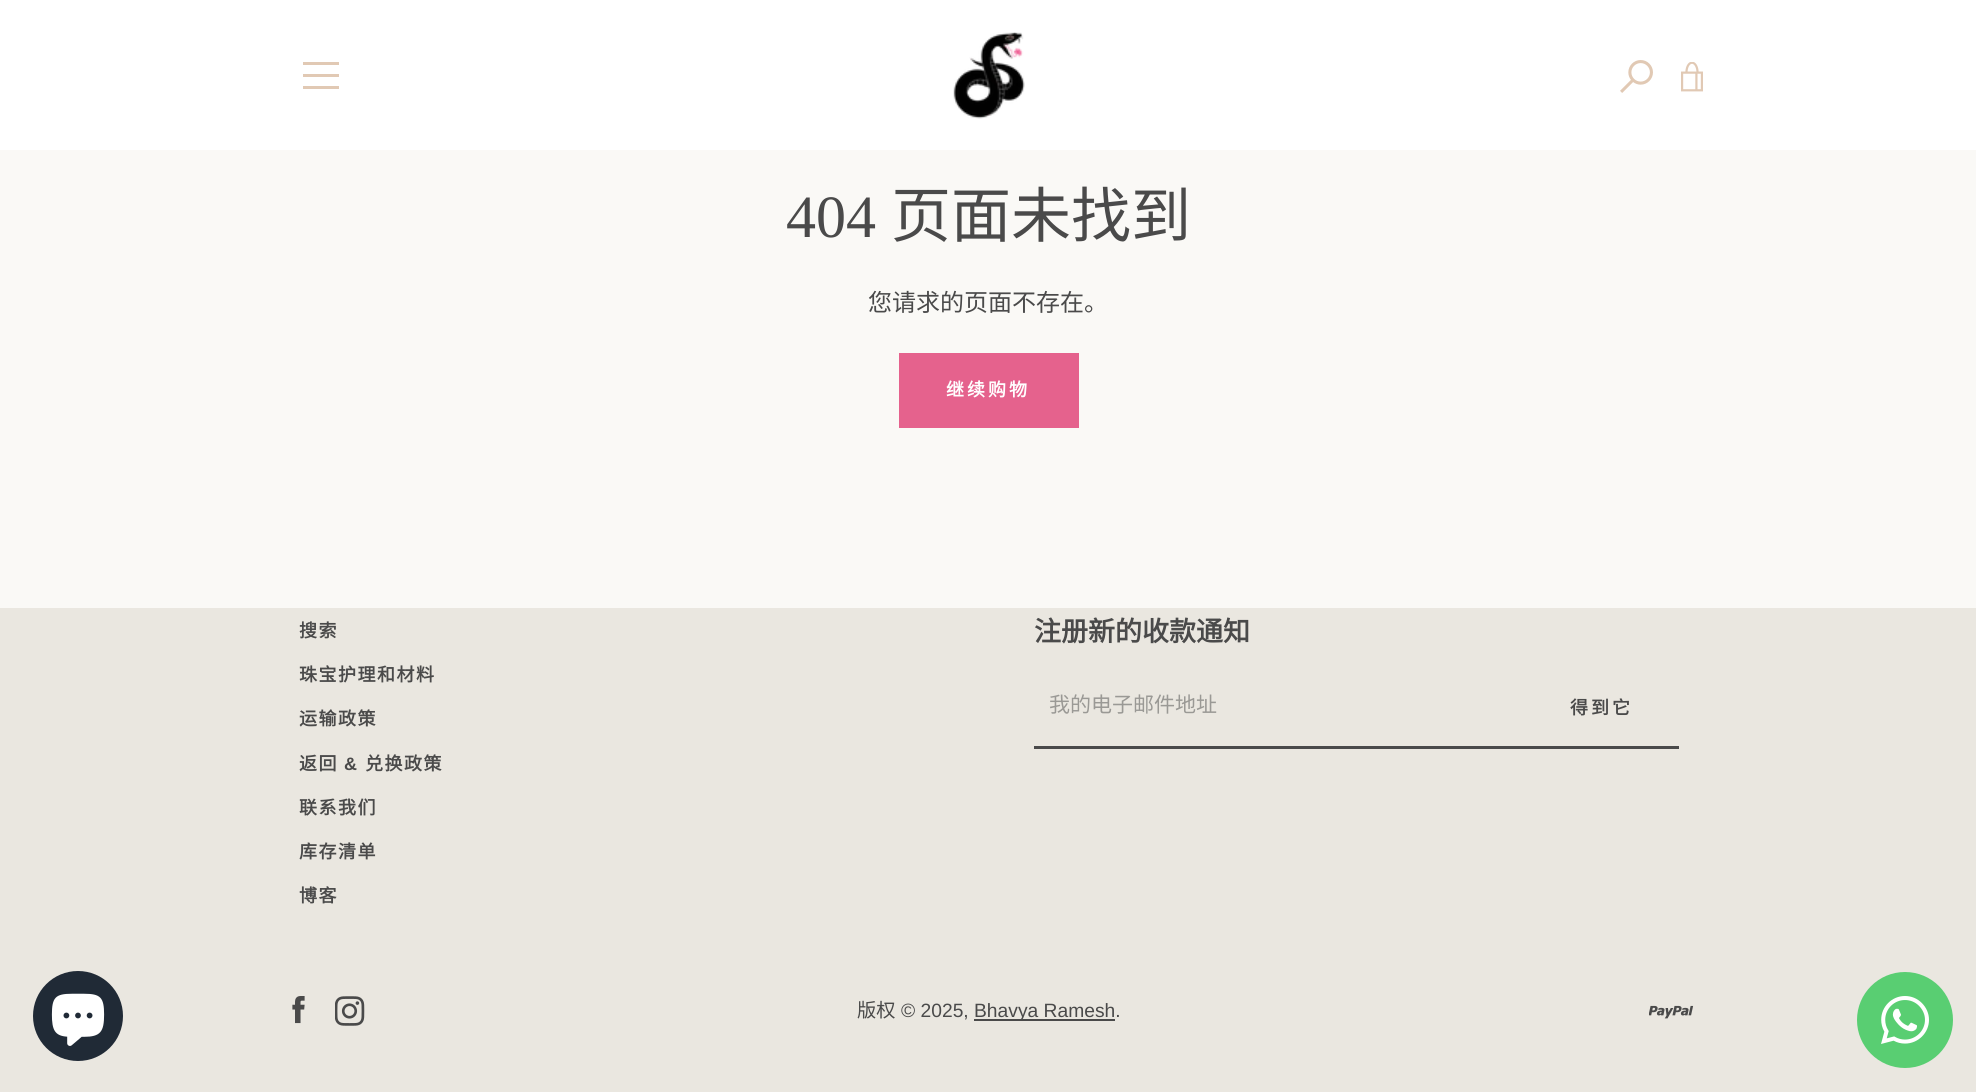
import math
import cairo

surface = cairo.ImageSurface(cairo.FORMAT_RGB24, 1976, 1092)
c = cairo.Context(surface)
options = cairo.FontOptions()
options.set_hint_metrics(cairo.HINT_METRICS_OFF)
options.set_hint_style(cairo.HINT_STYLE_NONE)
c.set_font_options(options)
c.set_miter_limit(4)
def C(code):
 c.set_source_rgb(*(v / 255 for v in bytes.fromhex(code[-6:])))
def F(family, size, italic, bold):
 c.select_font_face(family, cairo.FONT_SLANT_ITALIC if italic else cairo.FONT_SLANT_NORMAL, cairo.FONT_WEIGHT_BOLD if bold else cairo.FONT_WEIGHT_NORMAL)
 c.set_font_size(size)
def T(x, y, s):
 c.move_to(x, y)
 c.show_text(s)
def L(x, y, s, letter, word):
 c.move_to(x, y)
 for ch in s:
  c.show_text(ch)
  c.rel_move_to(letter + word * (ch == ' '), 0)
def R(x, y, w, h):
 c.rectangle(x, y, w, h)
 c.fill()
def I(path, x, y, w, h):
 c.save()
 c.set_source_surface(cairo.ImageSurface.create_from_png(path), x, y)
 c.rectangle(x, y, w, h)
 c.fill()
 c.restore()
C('eae7e0')
c.paint()
C('faf9f6')
R(0,150,1976,458)
C('ffffff')
R(0,0,1976,150)
C('e1c9b4')
R(303,62,36,3)
R(303,74,36,3)
R(303,86,36,3)
I('1.png',953,32,72,87)
I('2.png',1620,60,33,33)
I('3.png',1681,62,22,30)
C('202a36')
c.arc(78,1016,45,0,2 * math.pi)
c.fill()
I('4.png',51,993,54,53)
F('Liberation Serif',60,0,0)
C('4a4a4a')
T(786,237,'404')
F('Noto Sans CJK SC',60,0,0)
T(891,237,'页面未找到')
F('Noto Sans CJK SC',24,0,0)
T(868,311,'您请求的页面不存在。')
C('e5628d')
R(899,353,180,75)
F('Noto Sans CJK SC',18,0,1)
C('ffffff')
L(946,396,'继续购物',3,0)
C('4a4a4a')
L(299,637,'搜索',1.5,0)
L(299,681,'珠宝护理和材料',1.5,0)
L(299,725,'运输政策',1.5,0)
L(299,770,'返回',1.5,0)
F('Liberation Sans',18,0,1)
L(344,770,'&',1.5,0)
F('Noto Sans CJK SC',18,0,1)
L(365,770,'兑换政策',1.5,0)
L(299,814,'联系我们',1.5,0)
L(299,858,'库存清单',1.5,0)
L(299,902,'博客',1.5,0)
F('Noto Sans CJK SC',27,0,1)
T(1034,641,'注册新的收款通知')
R(1034,746,645,3)
F('Noto Sans CJK SC',21,0,0)
C('9a9995')
T(1049,712,'我的电子邮件地址')
F('Noto Sans CJK SC',18,0,1)
C('4a4a4a')
L(1570,714,'得到它',3,0)
I('5.png',292,996,13,28)
I('6.png',335,996,30,30)
F('Noto Sans CJK SC',19.25,0,0)
T(857,1017,'版权')
F('Liberation Sans',19.25,0,0)
T(901,1017,'© 2025,')
R(974,1019,141,2)
T(974,1017,'Bhavya Ramesh.')
I('7.png',1649,1005,45,14)
C('59ce72')
c.arc(1905,1020,48,0,2 * math.pi)
c.fill()
I('8.png',1881,996,48,48)
surface.write_to_png('o.png')
